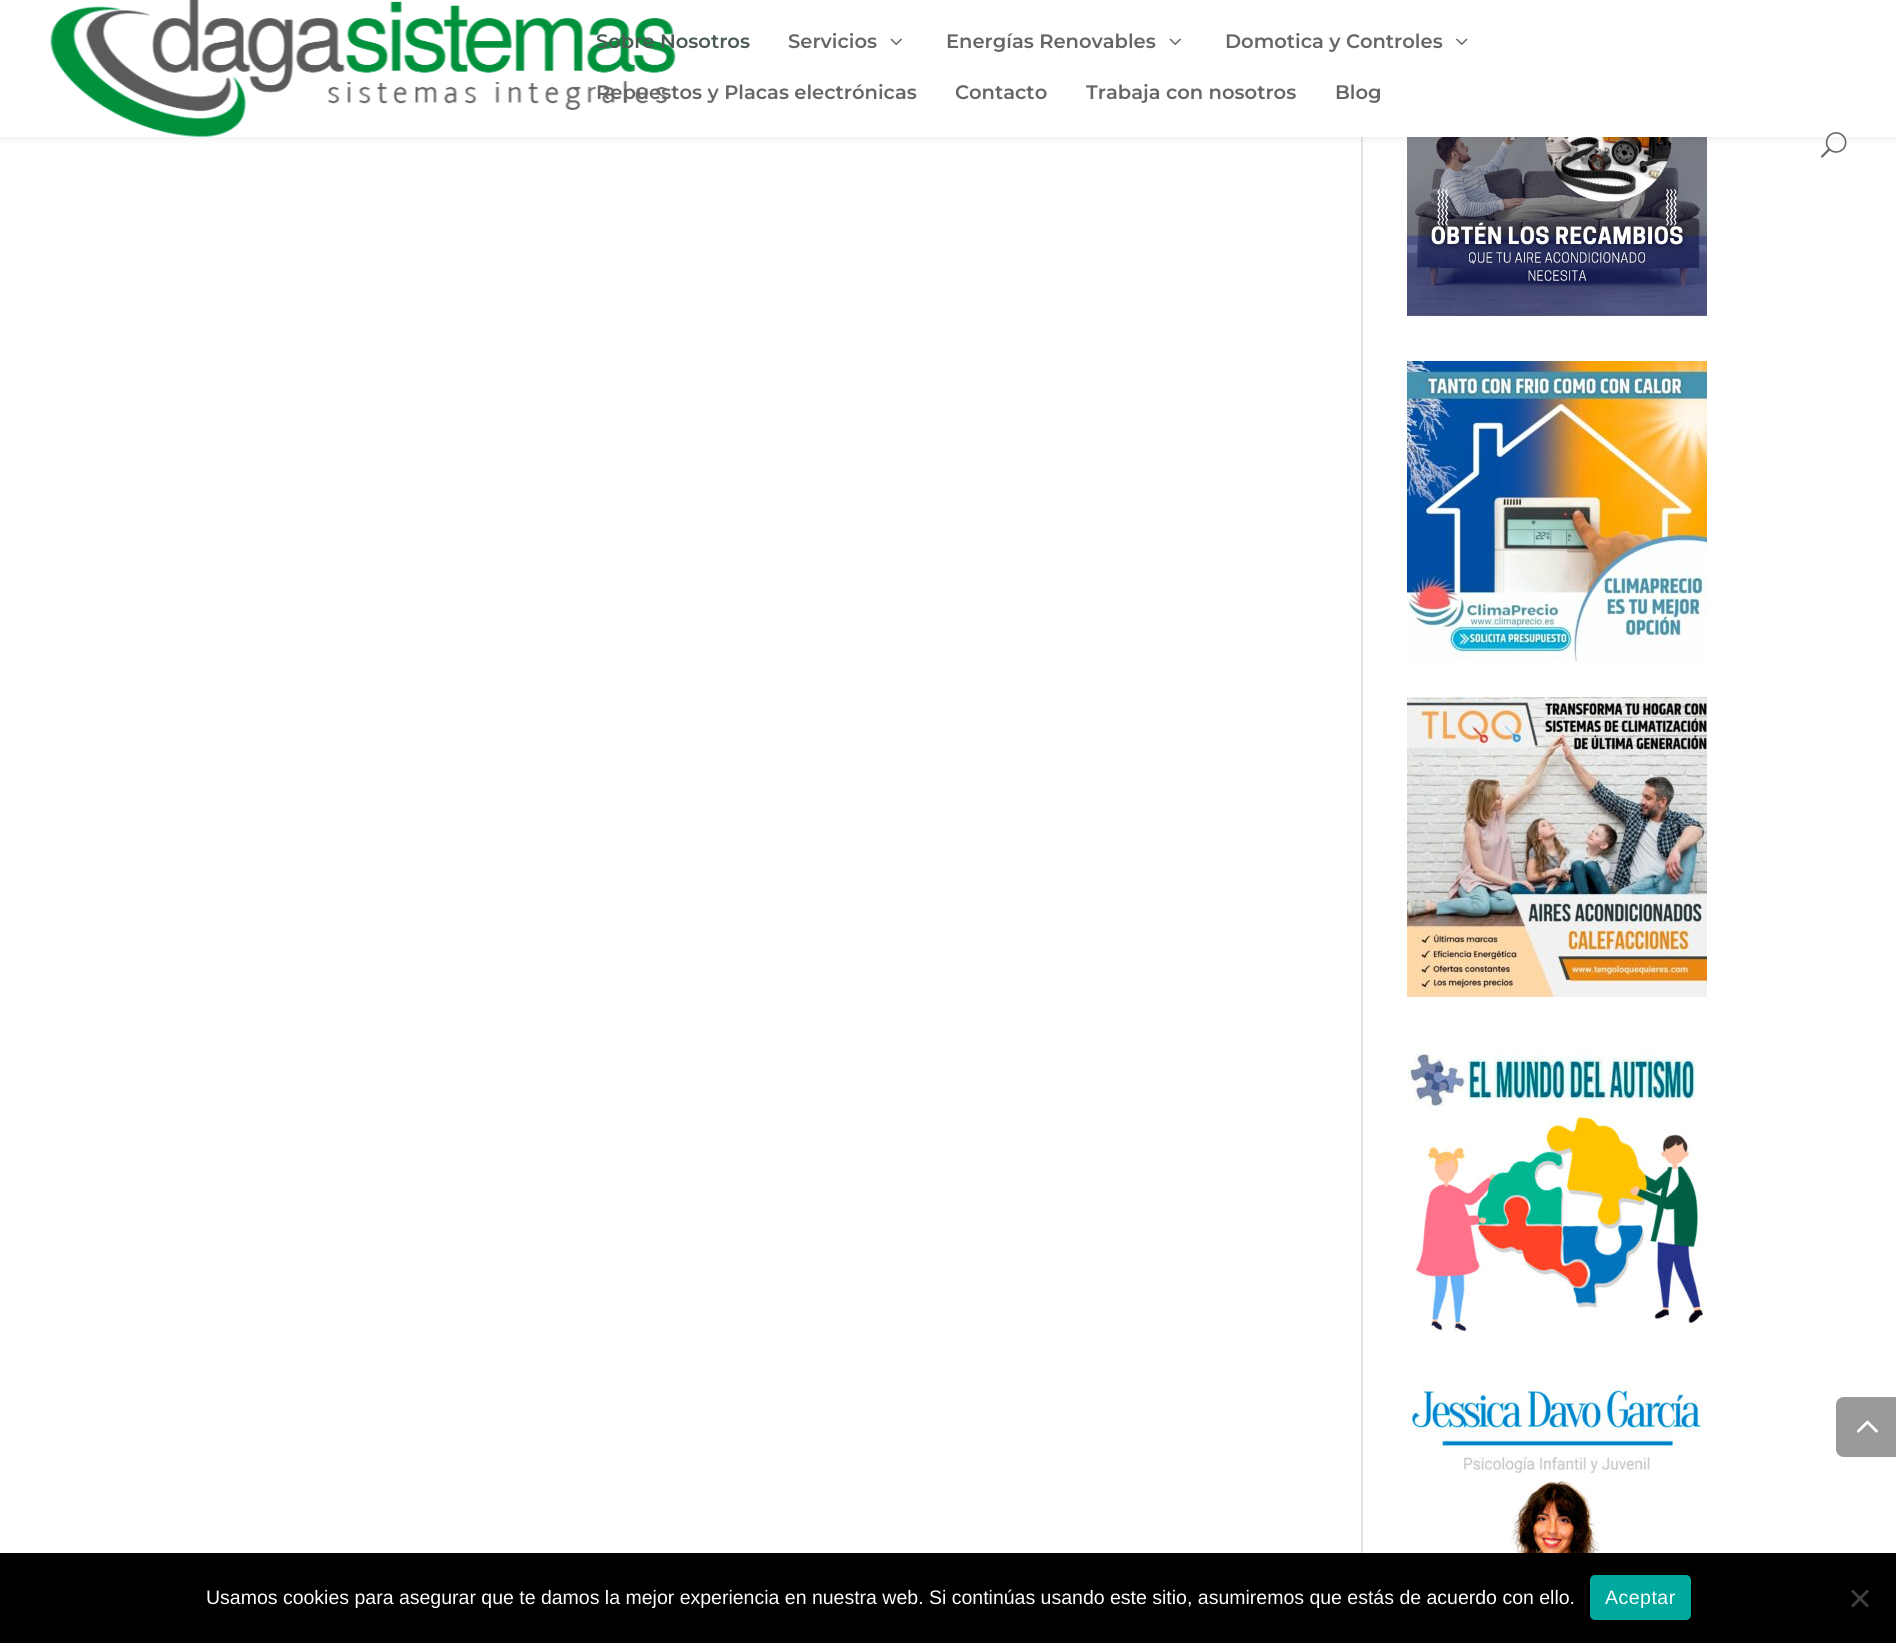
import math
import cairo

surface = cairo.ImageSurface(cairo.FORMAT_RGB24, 1896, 1643)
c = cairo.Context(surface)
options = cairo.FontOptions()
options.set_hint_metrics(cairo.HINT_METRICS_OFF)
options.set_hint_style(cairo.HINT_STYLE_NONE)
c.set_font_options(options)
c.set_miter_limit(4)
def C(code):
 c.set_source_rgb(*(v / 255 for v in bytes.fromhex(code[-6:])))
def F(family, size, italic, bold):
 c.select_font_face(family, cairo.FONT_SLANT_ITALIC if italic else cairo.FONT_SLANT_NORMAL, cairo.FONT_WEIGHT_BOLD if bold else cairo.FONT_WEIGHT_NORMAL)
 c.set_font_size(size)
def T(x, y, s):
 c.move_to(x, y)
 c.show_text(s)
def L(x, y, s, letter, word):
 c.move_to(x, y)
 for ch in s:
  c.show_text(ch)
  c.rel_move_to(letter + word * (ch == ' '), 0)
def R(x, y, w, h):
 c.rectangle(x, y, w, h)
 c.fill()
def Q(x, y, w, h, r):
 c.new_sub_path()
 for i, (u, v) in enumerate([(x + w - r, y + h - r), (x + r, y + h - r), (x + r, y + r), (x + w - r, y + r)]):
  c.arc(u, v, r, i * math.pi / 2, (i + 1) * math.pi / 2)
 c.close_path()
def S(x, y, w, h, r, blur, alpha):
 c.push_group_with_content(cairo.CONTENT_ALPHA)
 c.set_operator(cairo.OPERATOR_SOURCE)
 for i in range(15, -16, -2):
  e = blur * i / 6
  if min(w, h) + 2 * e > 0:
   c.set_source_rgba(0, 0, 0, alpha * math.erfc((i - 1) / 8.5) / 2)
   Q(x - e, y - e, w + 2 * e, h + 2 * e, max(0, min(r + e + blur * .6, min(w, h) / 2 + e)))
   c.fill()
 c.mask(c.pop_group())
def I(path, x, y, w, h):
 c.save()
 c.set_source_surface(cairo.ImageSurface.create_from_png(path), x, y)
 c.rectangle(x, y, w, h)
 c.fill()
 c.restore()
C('ffffff')
c.paint()
C('e2e2e2')
R(1361,137,2,1416)
I('5.png',1407,137,300,179)
C('000000')
S(0,0,1896,137,0,5,.1)
C('ffffff')
R(0,0,1896,137)
I('1.png',50,0,626,137)
F('Montserrat Thin',19.5,0,0)
C('4c5b52')
T(596,48,'Sobre Nosotros')
C('666666')
T(788,48,'Servicios')
I('2.png',890,38,12,7)
T(946,48,'Energías Renovables')
I('2.png',1169,38,12,7)
T(1225,48,'Domotica y Controles')
I('3.png',1456,38,12,7)
T(596,99,'Repuestos y Placas electrónicas')
T(955,99,'Contacto')
T(1086,99,'Trabaja con nosotros')
T(1335,99,'Blog')
I('4.png',1820,132,27,26)
I('6.png',1407,361,300,300)
I('7.png',1407,697,300,300)
I('8.png',1407,1049,296,284)
I('9.png',1407,1385,296,168)
C('999999')
c.new_path()
c.move_to(1844,1397)
c.line_to(1896,1397)
c.line_to(1896,1457)
c.line_to(1844,1457)
c.curve_to(1839.5,1457,1836,1453.5,1836,1449)
c.line_to(1836,1405)
c.curve_to(1836,1400.5,1839.5,1397,1844,1397)
c.close_path()
c.fill()
I('10.png',1856,1420,22,13)
C('000000')
R(0,1553,1896,90)
F('Liberation Sans',19.5,0,0)
C('ffffff')
T(206,1604,'Usamos cookies para asegurar que te damos la mejor experiencia en nuestra web. Si continúas usando este sitio, asumiremos que estás de acuerdo con ello.')
C('00a99d')
Q(1590,1575,101,45,5)
c.fill()
C('ffffff')
L(1605,1604,'Aceptar',.5,0)
C('404040')
c.new_path()
c.move_to(1867,1589.5)
c.line_to(1869,1591.5)
c.line_to(1853,1607.5)
c.line_to(1851,1605.5)
c.close_path()
c.fill()
c.new_path()
c.move_to(1851,1591.5)
c.line_to(1853,1589.5)
c.line_to(1869,1605.5)
c.line_to(1867,1607.5)
c.close_path()
c.fill()
surface.write_to_png('o.png')
